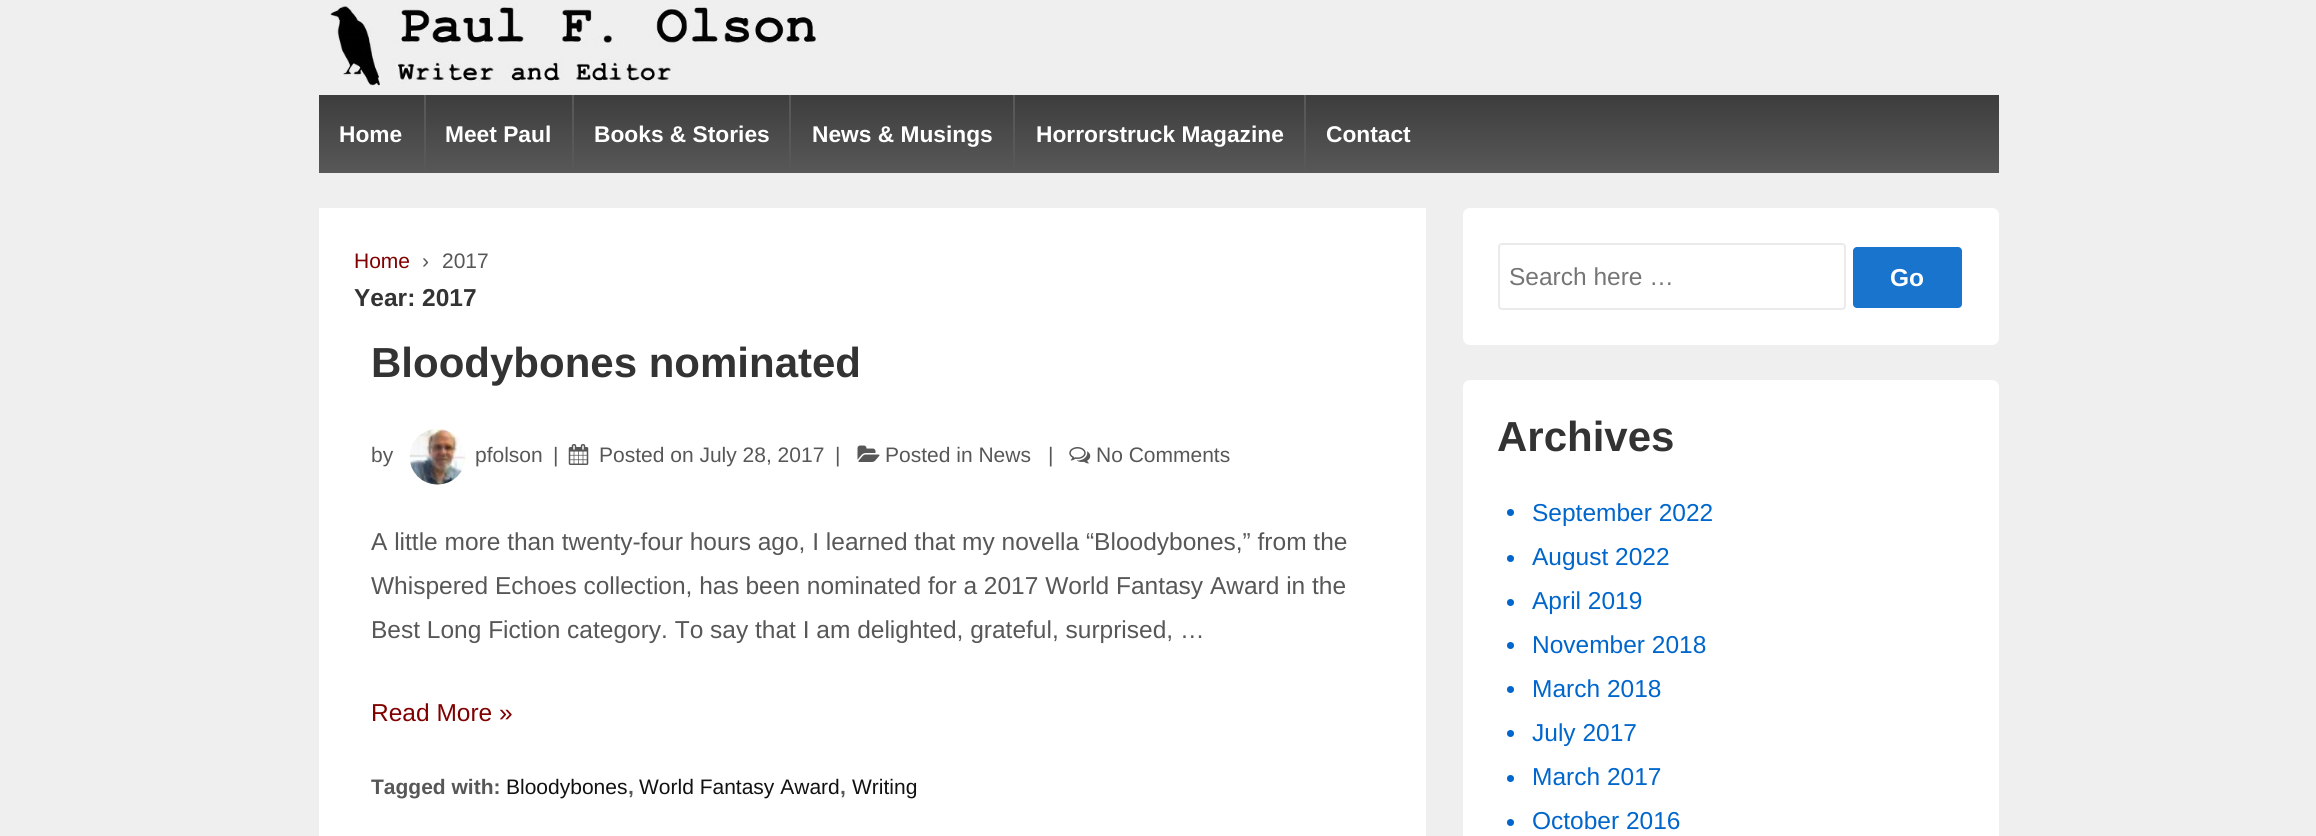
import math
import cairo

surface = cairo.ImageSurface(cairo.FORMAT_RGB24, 2316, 836)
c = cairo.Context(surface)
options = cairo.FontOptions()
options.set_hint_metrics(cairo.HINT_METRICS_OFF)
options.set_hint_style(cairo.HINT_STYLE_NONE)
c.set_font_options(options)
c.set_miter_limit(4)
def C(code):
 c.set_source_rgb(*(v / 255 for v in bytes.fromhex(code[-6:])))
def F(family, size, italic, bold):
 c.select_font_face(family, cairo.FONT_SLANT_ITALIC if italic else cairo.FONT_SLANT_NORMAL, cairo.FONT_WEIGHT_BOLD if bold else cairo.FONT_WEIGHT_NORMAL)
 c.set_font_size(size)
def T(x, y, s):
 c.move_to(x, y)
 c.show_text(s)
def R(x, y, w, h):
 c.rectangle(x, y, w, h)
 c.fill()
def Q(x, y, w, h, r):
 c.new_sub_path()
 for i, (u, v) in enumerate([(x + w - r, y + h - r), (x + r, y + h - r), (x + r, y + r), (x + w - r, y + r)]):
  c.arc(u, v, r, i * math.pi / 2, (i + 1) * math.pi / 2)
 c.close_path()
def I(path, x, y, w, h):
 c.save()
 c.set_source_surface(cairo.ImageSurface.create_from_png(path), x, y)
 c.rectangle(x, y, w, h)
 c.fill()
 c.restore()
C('efefef')
c.paint()
I('1.png',330,3,488,85)
gradient = cairo.LinearGradient(1159,173,1159,95)
gradient.add_color_stop_rgba(0,0.345,0.345,0.345,1)
gradient.add_color_stop_rgba(1,0.239,0.239,0.239,1)
c.set_source(gradient)
R(319,95,1680,78)
F('Liberation Sans',22.75,0,1)
C('ffffff')
T(339,142,'Home')
C('585858')
R(424,95,2,78)
C('ffffff')
T(445,142,'Meet Paul')
C('585858')
R(572,95,2,78)
C('ffffff')
T(594,142,'Books & Stories')
C('585858')
R(789,95,2,78)
C('ffffff')
T(812,142,'News & Musings')
C('585858')
R(1013,95,2,78)
C('ffffff')
T(1036,142,'Horrorstruck Magazine')
C('585858')
R(1304,95,2,78)
C('ffffff')
T(1326,142,'Contact')
R(319,208,1107,628)
F('Liberation Sans',21,0,0)
C('800000')
T(354,268,'Home')
C('575757')
T(422,268,'›')
T(442,268,'2017')
F('Liberation Sans',24.5,0,1)
C('333333')
T(354,306,'Year: 2017')
F('Liberation Sans',42,0,1)
T(371,377,'Bloodybones nominated')
F('Liberation Sans',21,0,0)
C('575757')
T(371,462,'by')
I('2.png',409,429,57,56)
T(475,462,'pfolson')
T(553,462,'|')
I('3.png',568,444,21,21)
T(599,462,'Posted on July 28, 2017')
T(835,462,'|')
I('4.png',857,445,23,17)
T(885,462,'Posted in News')
T(1048,462,'|')
I('5.png',1069,447,22,17)
T(1096,462,'No Comments')
F('Liberation Sans',24.5,0,0)
T(371,550,'A little more than twenty-four hours ago, I learned that my novella “Bloodybones,” from the')
T(371,594,'Whispered Echoes collection, has been nominated for a 2017 World Fantasy Award in the')
T(371,638,'Best Long Fiction category. To say that I am delighted, grateful, surprised, …')
C('800000')
T(371,721,'Read More »')
F('Liberation Sans',21,0,1)
C('575757')
T(371,794,'Tagged with:')
F('Liberation Sans',21,0,0)
C('111111')
T(506,794,'Bloodybones')
F('Liberation Sans',21,0,1)
C('575757')
T(628,794,',')
F('Liberation Sans',21,0,0)
C('111111')
T(639,794,'World Fantasy Award')
F('Liberation Sans',21,0,1)
C('575757')
T(840,794,',')
F('Liberation Sans',21,0,0)
C('111111')
T(852,794,'Writing')
C('ffffff')
Q(1463,208,536,137,7)
c.fill()
Q(1499,244,346,65,3)
C('eaeaea')
c.stroke()
F('Liberation Sans',24.5,0,0)
C('757575')
T(1509,285,'Search here …')
C('1874cd')
Q(1853,247,109,61,4)
c.fill()
F('Liberation Sans',24.5,0,1)
C('ffffff')
T(1890,286,'Go')
Q(1463,380,536,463,7)
c.fill()
F('Liberation Sans',42,0,1)
C('333333')
T(1497,451,'Archives')
C('0066cc')
c.new_path()
c.arc(1510.5,512.5,3.5,0,2 * math.pi)
c.fill()
F('Liberation Sans',24.5,0,0)
T(1532,521,'September 2022')
c.new_path()
c.arc(1510.5,558.5,3.5,0,2 * math.pi)
c.fill()
T(1532,565,'August 2022')
c.new_path()
c.arc(1510.5,602.5,3.5,0,2 * math.pi)
c.fill()
T(1532,609,'April 2019')
c.new_path()
c.arc(1510.5,645.5,3.5,0,2 * math.pi)
c.fill()
T(1532,653,'November 2018')
c.new_path()
c.arc(1510.5,689.5,3.5,0,2 * math.pi)
c.fill()
T(1532,697,'March 2018')
c.new_path()
c.arc(1510.5,733.5,3.5,0,2 * math.pi)
c.fill()
T(1532,741,'July 2017')
c.new_path()
c.arc(1510.5,778.5,3.5,0,2 * math.pi)
c.fill()
T(1532,785,'March 2017')
c.new_path()
c.arc(1510.5,822.5,3.5,0,2 * math.pi)
c.fill()
T(1532,829,'October 2016')
surface.write_to_png('o.png')
